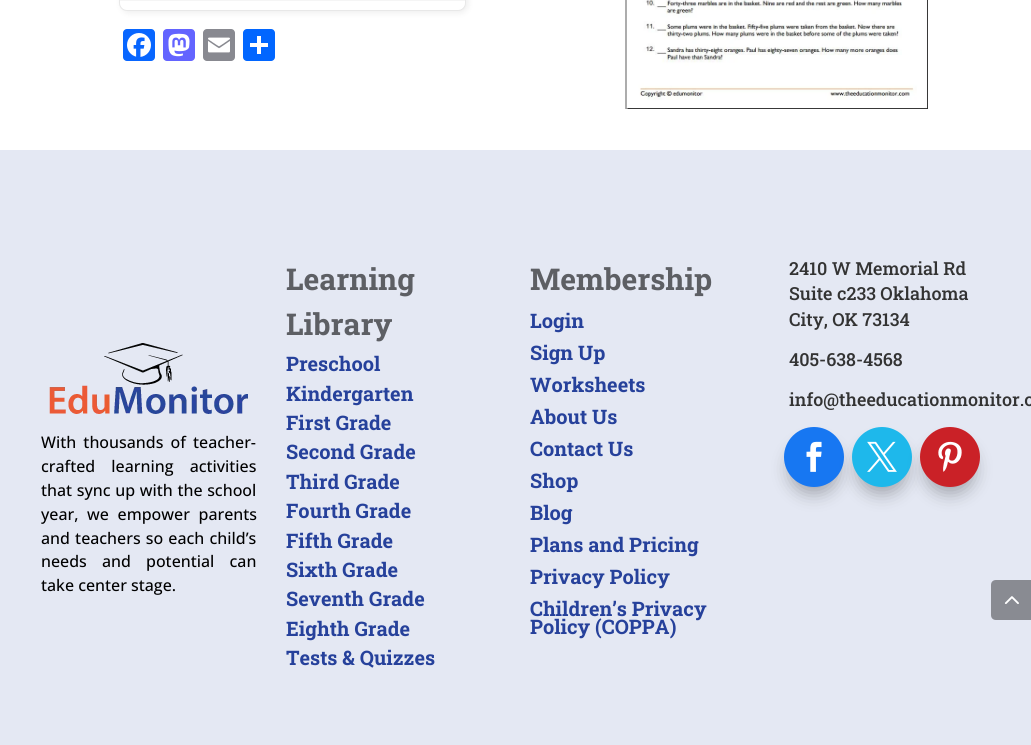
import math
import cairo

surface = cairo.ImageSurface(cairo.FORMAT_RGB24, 1031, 745)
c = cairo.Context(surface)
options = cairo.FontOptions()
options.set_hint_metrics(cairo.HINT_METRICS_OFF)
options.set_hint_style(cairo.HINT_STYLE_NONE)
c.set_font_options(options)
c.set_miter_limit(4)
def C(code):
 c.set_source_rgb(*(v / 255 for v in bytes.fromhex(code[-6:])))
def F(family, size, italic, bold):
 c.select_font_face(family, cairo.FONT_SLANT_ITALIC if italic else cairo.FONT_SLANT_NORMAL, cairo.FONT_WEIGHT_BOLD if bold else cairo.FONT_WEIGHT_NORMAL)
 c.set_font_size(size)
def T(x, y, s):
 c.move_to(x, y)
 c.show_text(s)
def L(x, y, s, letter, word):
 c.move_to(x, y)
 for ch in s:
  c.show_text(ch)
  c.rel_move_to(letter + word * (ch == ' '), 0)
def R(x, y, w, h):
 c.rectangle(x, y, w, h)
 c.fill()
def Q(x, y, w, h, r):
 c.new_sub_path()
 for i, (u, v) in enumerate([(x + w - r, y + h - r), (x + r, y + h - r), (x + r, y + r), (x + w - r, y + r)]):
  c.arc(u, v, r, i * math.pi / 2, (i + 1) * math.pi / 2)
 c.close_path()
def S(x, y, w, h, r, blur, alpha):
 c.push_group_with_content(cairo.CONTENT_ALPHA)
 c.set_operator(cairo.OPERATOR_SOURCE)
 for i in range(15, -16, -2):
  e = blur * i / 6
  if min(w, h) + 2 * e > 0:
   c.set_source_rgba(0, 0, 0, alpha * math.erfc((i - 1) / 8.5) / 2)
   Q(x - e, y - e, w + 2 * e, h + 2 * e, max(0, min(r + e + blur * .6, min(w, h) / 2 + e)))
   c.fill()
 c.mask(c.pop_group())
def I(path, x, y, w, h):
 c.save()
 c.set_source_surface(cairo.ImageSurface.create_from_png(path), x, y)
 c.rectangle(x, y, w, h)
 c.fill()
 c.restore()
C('ffffff')
c.paint()
C('000000')
S(121,-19,347,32,8,3.5,.07)
C('ffffff')
Q(119.5,-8.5,346,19,7.5)
c.fill_preserve()
C('e8e8e8')
c.set_line_width(1)
c.stroke()
C('f5f5f5')
R(120,0,345,1)
C('0866ff')
Q(123,29,32,32,4)
c.fill()
I('1.png',127,33,24,24)
C('6364ff')
Q(163,29,32,32,4)
c.fill()
I('2.png',168,33,22,24)
C('888990')
Q(203,29,32,32,4)
c.fill()
I('3.png',208,37,22,16)
C('0166ff')
Q(243,29,32,32,4)
c.fill()
C('ffffff')
R(257,36,4,18)
R(250,43,18,4)
I('4.png',625,0,303,109)
C('e4e8f3')
R(0,150,1031,595)
I('5.png',49,343,199,71)
F('Open Sans Medium',16,0,0)
C('000000')
L(41,448,'With thousands of teacher-',0,3)
L(41,472,'crafted learning activities',0,12)
L(41,496,'that sync up with the school',0,.5)
L(41,520,'year, we empower parents',0,4.5)
L(41,544,'and teachers so each child’s',0,1)
L(41,567,'needs and potential can',0,11)
T(41,591,'take center stage.')
F('Roboto Slab',30,0,1)
C('5d5f64')
T(286,290,'Learning')
T(286,335,'Library')
F('Roboto Slab',20,0,1)
C('26419b')
T(286,371,'Preschool')
T(286,401,'Kindergarten')
T(286,430,'First Grade')
T(286,459,'Second Grade')
T(286,489,'Third Grade')
T(286,518,'Fourth Grade')
T(286,548,'Fifth Grade')
T(286,577,'Sixth Grade')
T(286,606,'Seventh Grade')
T(286,636,'Eighth Grade')
T(286,665,'Tests & Quizzes')
F('Roboto Slab',30,0,1)
C('5d5f64')
T(530,290,'Membership')
F('Roboto Slab',20,0,1)
C('26419b')
T(530,328,'Login')
T(530,360,'Sign Up')
T(530,392,'Worksheets')
T(530,424,'About Us')
T(530,456,'Contact Us')
T(530,488,'Shop')
T(530,520,'Blog')
T(530,552,'Plans and Pricing')
T(530,584,'Privacy Policy')
T(530,616,'Children’s Privacy')
T(530,634,'Policy (COPPA)')
F('Roboto Slab Medium',18,0,0)
C('333333')
T(789,275,'2410 W Memorial Rd')
T(789,300,'Suite c233 Oklahoma')
T(789,326,'City, OK 73134')
T(789,366,'405-638-4568')
T(789,406,'info@theeducationmonitor.c')
C('000000')
S(790,445,48,48,24,9,.3)
C('1777f2')
c.arc(814,457,30,0,2 * math.pi)
c.fill()
I('6.png',806,441,16,31)
C('000000')
S(858,445,48,48,24,9,.3)
C('1eb8eb')
c.arc(882,457,30,0,2 * math.pi)
c.fill()
I('7.png',867,441,30,31)
C('000000')
S(926,445,48,48,24,9,.3)
C('ca2127')
c.arc(950,457,30,0,2 * math.pi)
c.fill()
I('8.png',938,441,24,31)
C('898b92')
c.new_path()
c.move_to(996,580)
c.line_to(1031,580)
c.line_to(1031,620)
c.line_to(996,620)
c.curve_to(993,620,991,618,991,615)
c.line_to(991,585)
c.curve_to(991,582,993,580,996,580)
c.close_path()
c.fill()
I('9.png',1004,596,15,8)
surface.write_to_png('o.png')
